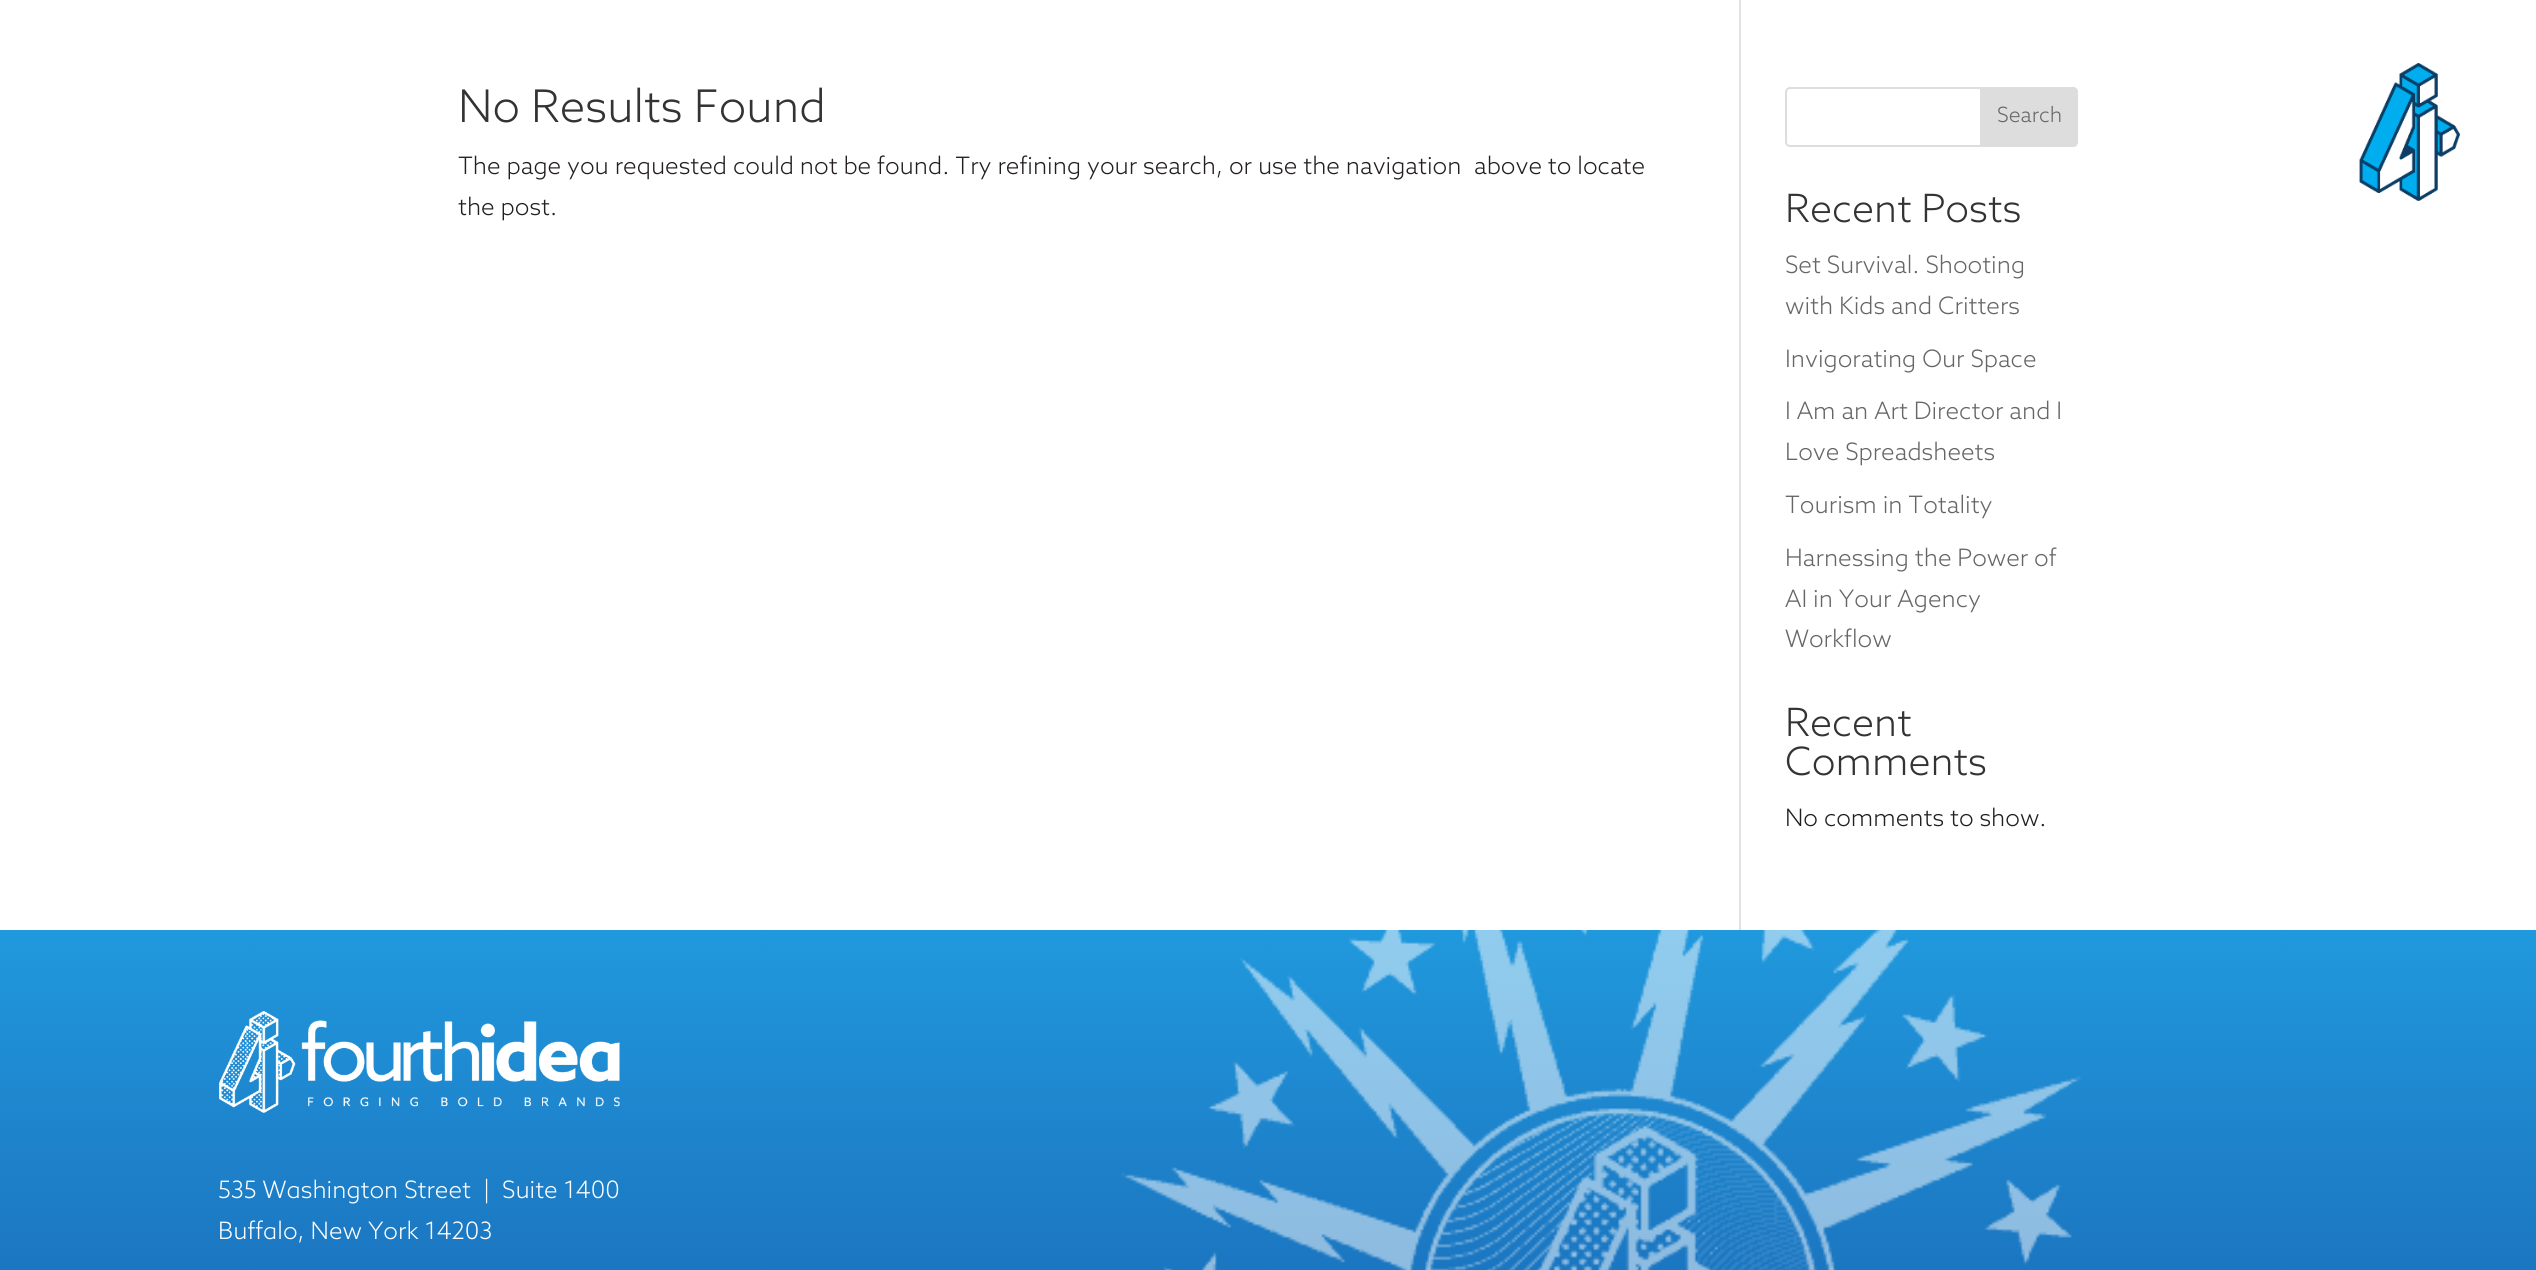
import math
import cairo

surface = cairo.ImageSurface(cairo.FORMAT_RGB24, 2536, 1270)
c = cairo.Context(surface)
options = cairo.FontOptions()
options.set_hint_metrics(cairo.HINT_METRICS_OFF)
options.set_hint_style(cairo.HINT_STYLE_NONE)
c.set_font_options(options)
c.set_miter_limit(4)
def C(code):
 c.set_source_rgb(*(v / 255 for v in bytes.fromhex(code[-6:])))
def F(family, size, italic, bold):
 c.select_font_face(family, cairo.FONT_SLANT_ITALIC if italic else cairo.FONT_SLANT_NORMAL, cairo.FONT_WEIGHT_BOLD if bold else cairo.FONT_WEIGHT_NORMAL)
 c.set_font_size(size)
def T(x, y, s):
 c.move_to(x, y)
 c.show_text(s)
def R(x, y, w, h):
 c.rectangle(x, y, w, h)
 c.fill()
def Q(x, y, w, h, r):
 c.new_sub_path()
 for i, (u, v) in enumerate([(x + w - r, y + h - r), (x + r, y + h - r), (x + r, y + r), (x + w - r, y + r)]):
  c.arc(u, v, r, i * math.pi / 2, (i + 1) * math.pi / 2)
 c.close_path()
def I(path, x, y, w, h):
 c.save()
 c.set_source_surface(cairo.ImageSurface.create_from_png(path), x, y)
 c.rectangle(x, y, w, h)
 c.fill()
 c.restore()
C('ffffff')
c.paint()
C('e2e2e2')
R(1739,0,2,930)
F('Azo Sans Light',45,0,0)
C('333333')
T(458,122,'No Results Found')
F('Azo Sans Light',24,0,0)
C('231f20')
T(458,174,'The page you requested could not be found. Try refining your search, or use the navigation')
T(1474,174,'above to locate')
T(458,215,'the post.')
Q(1786,88,291,58,4)
C('dddddd')
c.stroke()
c.new_path()
c.move_to(1981,88)
c.line_to(2073,88)
c.curve_to(2075,88,2077,90,2077,92)
c.line_to(2077,142)
c.curve_to(2077,144,2075,146,2073,146)
c.line_to(1981,146)
c.close_path()
c.fill_preserve()
c.stroke()
F('Azo Sans Light',21,0,0)
C('666666')
T(1997,122,'Search')
F('Azo Sans Light',39,0,0)
C('333333')
T(1785,222,'Recent Posts')
F('Azo Sans Light',24,0,0)
C('666666')
T(1785,273,'Set Survival. Shooting')
T(1785,314,'with Kids and Critters')
T(1785,367,'Invigorating Our Space')
T(1785,419,'I Am an Art Director and I')
T(1785,460,'Love Spreadsheets')
T(1785,513,'Tourism in Totality')
T(1785,566,'Harnessing the Power of')
T(1785,607,'AI in Your Agency')
T(1785,647,'Workflow')
F('Azo Sans Light',39,0,0)
C('333333')
T(1785,736,'Recent')
T(1785,775,'Comments')
F('Azo Sans Light',24,0,0)
C('231f20')
T(1785,826,'No comments to show.')
I('1.png',0,930,2536,340)
I('2.png',219,1011,401,102)
F('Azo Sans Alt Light',24,0,0)
C('ffffff')
T(218,1198,'535 Washington Street  |  Suite 1400')
T(218,1239,'Buffalo, New York 14203')
I('3.png',2359,63,101,138)
surface.write_to_png('o.png')
